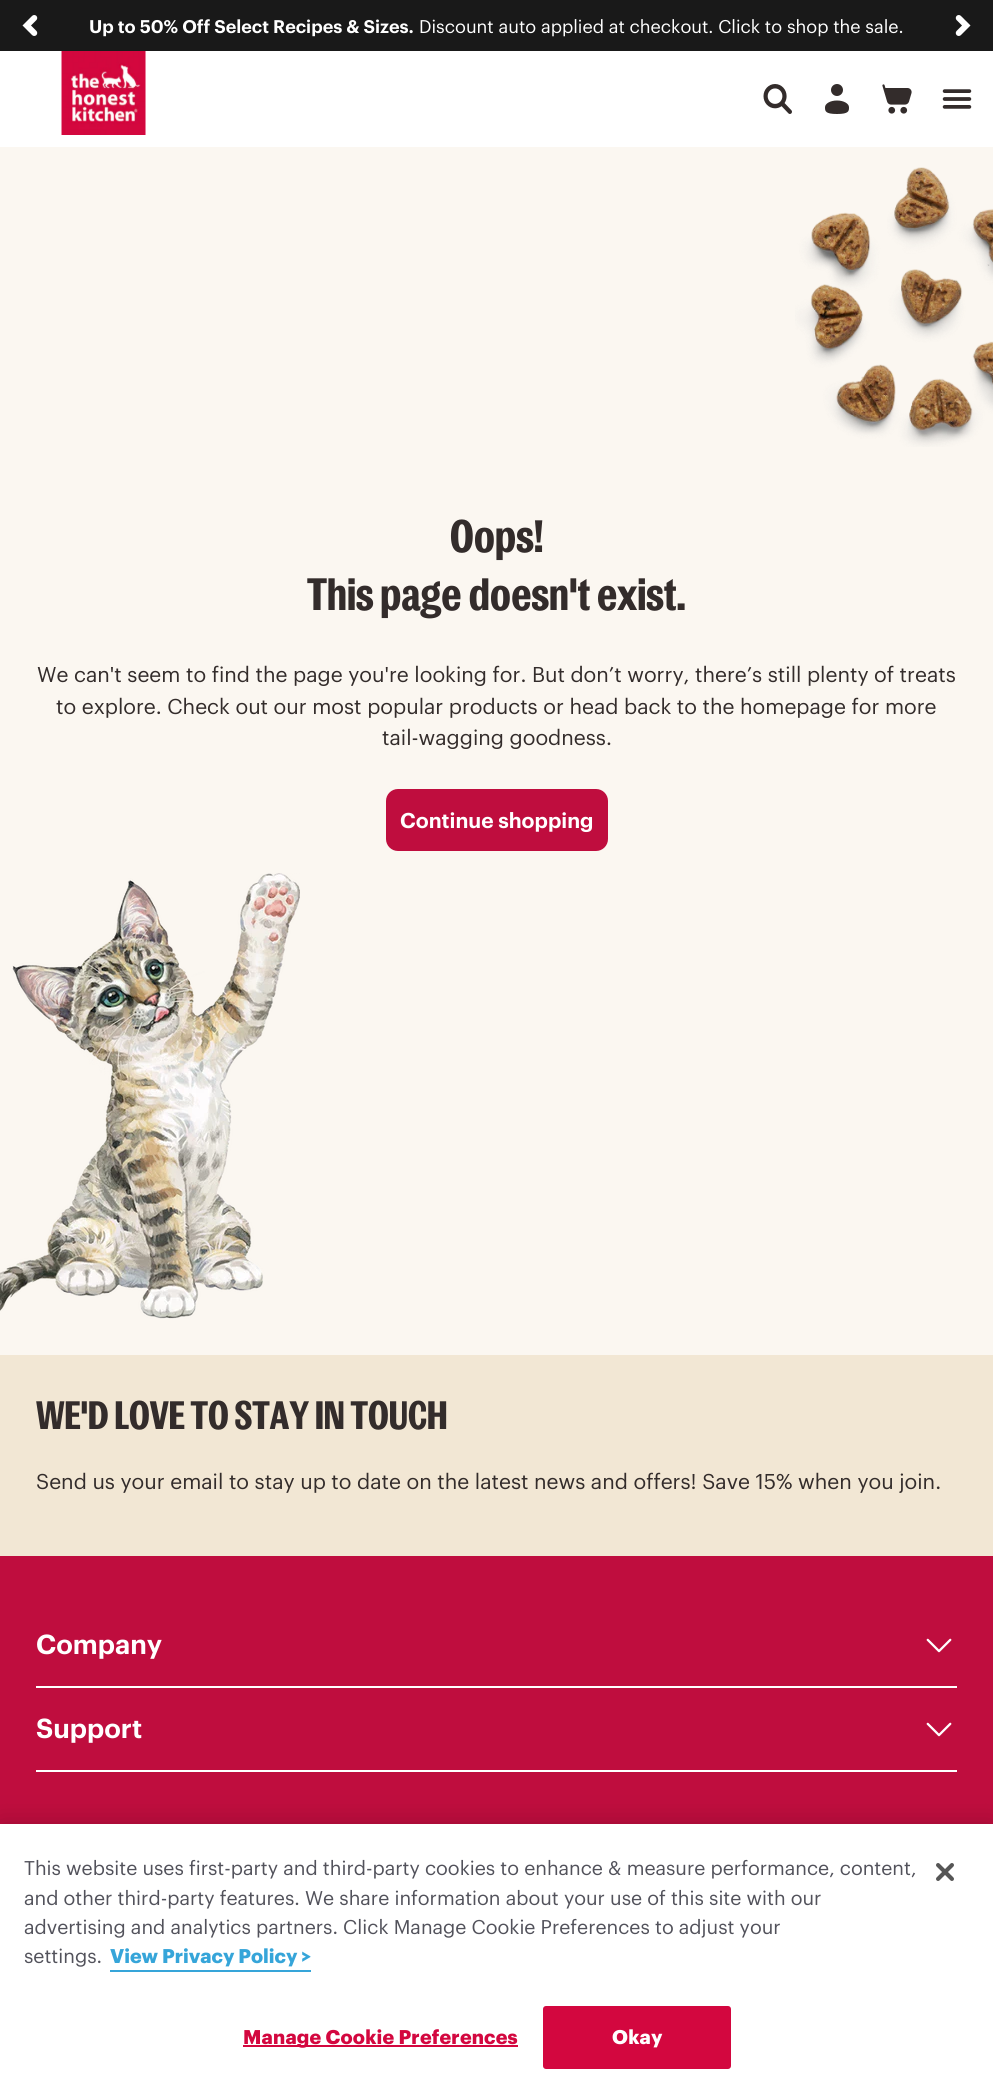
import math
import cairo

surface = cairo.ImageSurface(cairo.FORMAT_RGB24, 993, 2092)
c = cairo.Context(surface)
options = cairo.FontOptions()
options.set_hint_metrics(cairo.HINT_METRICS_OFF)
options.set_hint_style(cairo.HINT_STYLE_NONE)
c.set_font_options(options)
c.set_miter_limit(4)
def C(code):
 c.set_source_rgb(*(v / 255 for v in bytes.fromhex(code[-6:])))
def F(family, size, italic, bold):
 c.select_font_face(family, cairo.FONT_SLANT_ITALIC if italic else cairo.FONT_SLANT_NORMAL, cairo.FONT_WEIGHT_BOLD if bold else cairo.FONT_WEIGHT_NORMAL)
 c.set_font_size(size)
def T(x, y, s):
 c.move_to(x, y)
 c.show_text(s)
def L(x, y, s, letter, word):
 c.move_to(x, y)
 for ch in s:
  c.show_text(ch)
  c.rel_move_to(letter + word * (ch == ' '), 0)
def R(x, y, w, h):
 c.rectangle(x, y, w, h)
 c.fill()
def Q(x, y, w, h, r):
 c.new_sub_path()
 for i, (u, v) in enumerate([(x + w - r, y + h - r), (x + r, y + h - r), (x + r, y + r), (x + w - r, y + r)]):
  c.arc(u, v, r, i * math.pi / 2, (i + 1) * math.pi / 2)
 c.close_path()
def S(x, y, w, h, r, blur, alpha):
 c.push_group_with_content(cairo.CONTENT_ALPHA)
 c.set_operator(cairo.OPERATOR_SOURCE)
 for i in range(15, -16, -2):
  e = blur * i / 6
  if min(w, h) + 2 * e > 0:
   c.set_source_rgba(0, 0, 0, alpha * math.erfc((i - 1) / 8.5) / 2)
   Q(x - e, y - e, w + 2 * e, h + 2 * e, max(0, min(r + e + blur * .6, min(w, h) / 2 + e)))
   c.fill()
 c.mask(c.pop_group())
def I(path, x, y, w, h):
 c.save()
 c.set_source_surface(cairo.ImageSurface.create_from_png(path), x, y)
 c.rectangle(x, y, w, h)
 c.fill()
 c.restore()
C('ffffff')
c.paint()
C('191919')
R(0,0,993,51)
I('1.png',22,15,16,21)
I('2.png',955,15,16,21)
F('Graphik SemiBold',18,0,0)
C('ffffff')
T(89,33,'Up to 50% Off Select Recipes & Sizes.')
F('Graphik',18,0,0)
T(419,33,'Discount auto applied at checkout. Click to shop the sale.')
I('3.png',61,51,85,84)
I('4.png',763,84,29,30)
I('5.png',825,84,24,30)
I('6.png',882,84,30,30)
I('7.png',942,89,30,20)
C('fbf7f1')
R(0,147,993,96)
R(0,243,993,1112)
I('8.png',795,167,198,280)
F('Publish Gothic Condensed',48,0,1)
C('332c2b')
T(450,552,'Oops!')
T(307,610,'This page doesn\'t exist.')
F('Graphik',21,0,0)
T(37,682,'We can\'t seem to find the page you\'re looking for. But don’t worry, there’s still plenty of treats')
T(56,714,'to explore. Check out our most popular products or head back to the homepage for more')
T(382,745,'tail-wagging goodness.')
C('bf0d3e')
Q(387.5,790.5,219,59,10.5)
c.fill_preserve()
c.set_line_width(3)
c.stroke()
F('Graphik SemiBold',21,0,0)
C('ffffff')
T(400,828,'Continue shopping')
I('9.png',0,873,300,446)
C('bf0d3e')
R(0,1556,993,268)
C('f2e7d4')
R(0,1355,993,201)
F('Publish Gothic Condensed',42,0,1)
C('332c2b')
T(36,1429,'WE\'D LOVE TO STAY IN TOUCH')
F('Graphik',21,0,0)
T(36,1489,'Send us your email to stay up to date on the latest news and offers! Save 15% when you join.')
C('ffffff')
R(36,1686,921,2)
F('Graphik SemiBold',27,0,0)
T(36,1654,'Company')
I('10.png',926,1638,26,15)
R(36,1770,921,2)
T(36,1738,'Support')
I('10.png',926,1722,26,15)
C('000000')
S(0,1824,993,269,0,13.5,.2)
C('ffffff')
R(0,1824,993,268)
F('Graphik',19.5,0,0)
C('52525b')
T(24,1875,'This website uses first-party and third-party cookies to enhance & measure performance, content,')
T(24,1905,'and other third-party features. We share information about your use of this site with our')
T(24,1934,'advertising and analytics partners. Click Manage Cookie Preferences to adjust your')
T(24,1963,'settings.')
F('Graphik',19.5,0,1)
C('36a5d9')
T(110,1963,'View Privacy Policy >')
R(110,1970,201,2)
C('d3073f')
R(243,2045,275,2)
L(243,2044,'Manage Cookie Preferences',.2,0)
Q(544,2007,186,61,2)
c.fill_preserve()
c.set_line_width(2)
c.stroke()
C('ffffff')
L(612,2044,'Okay',.2,0)
I('11.png',936,1863,18,18)
surface.write_to_png('o.png')
